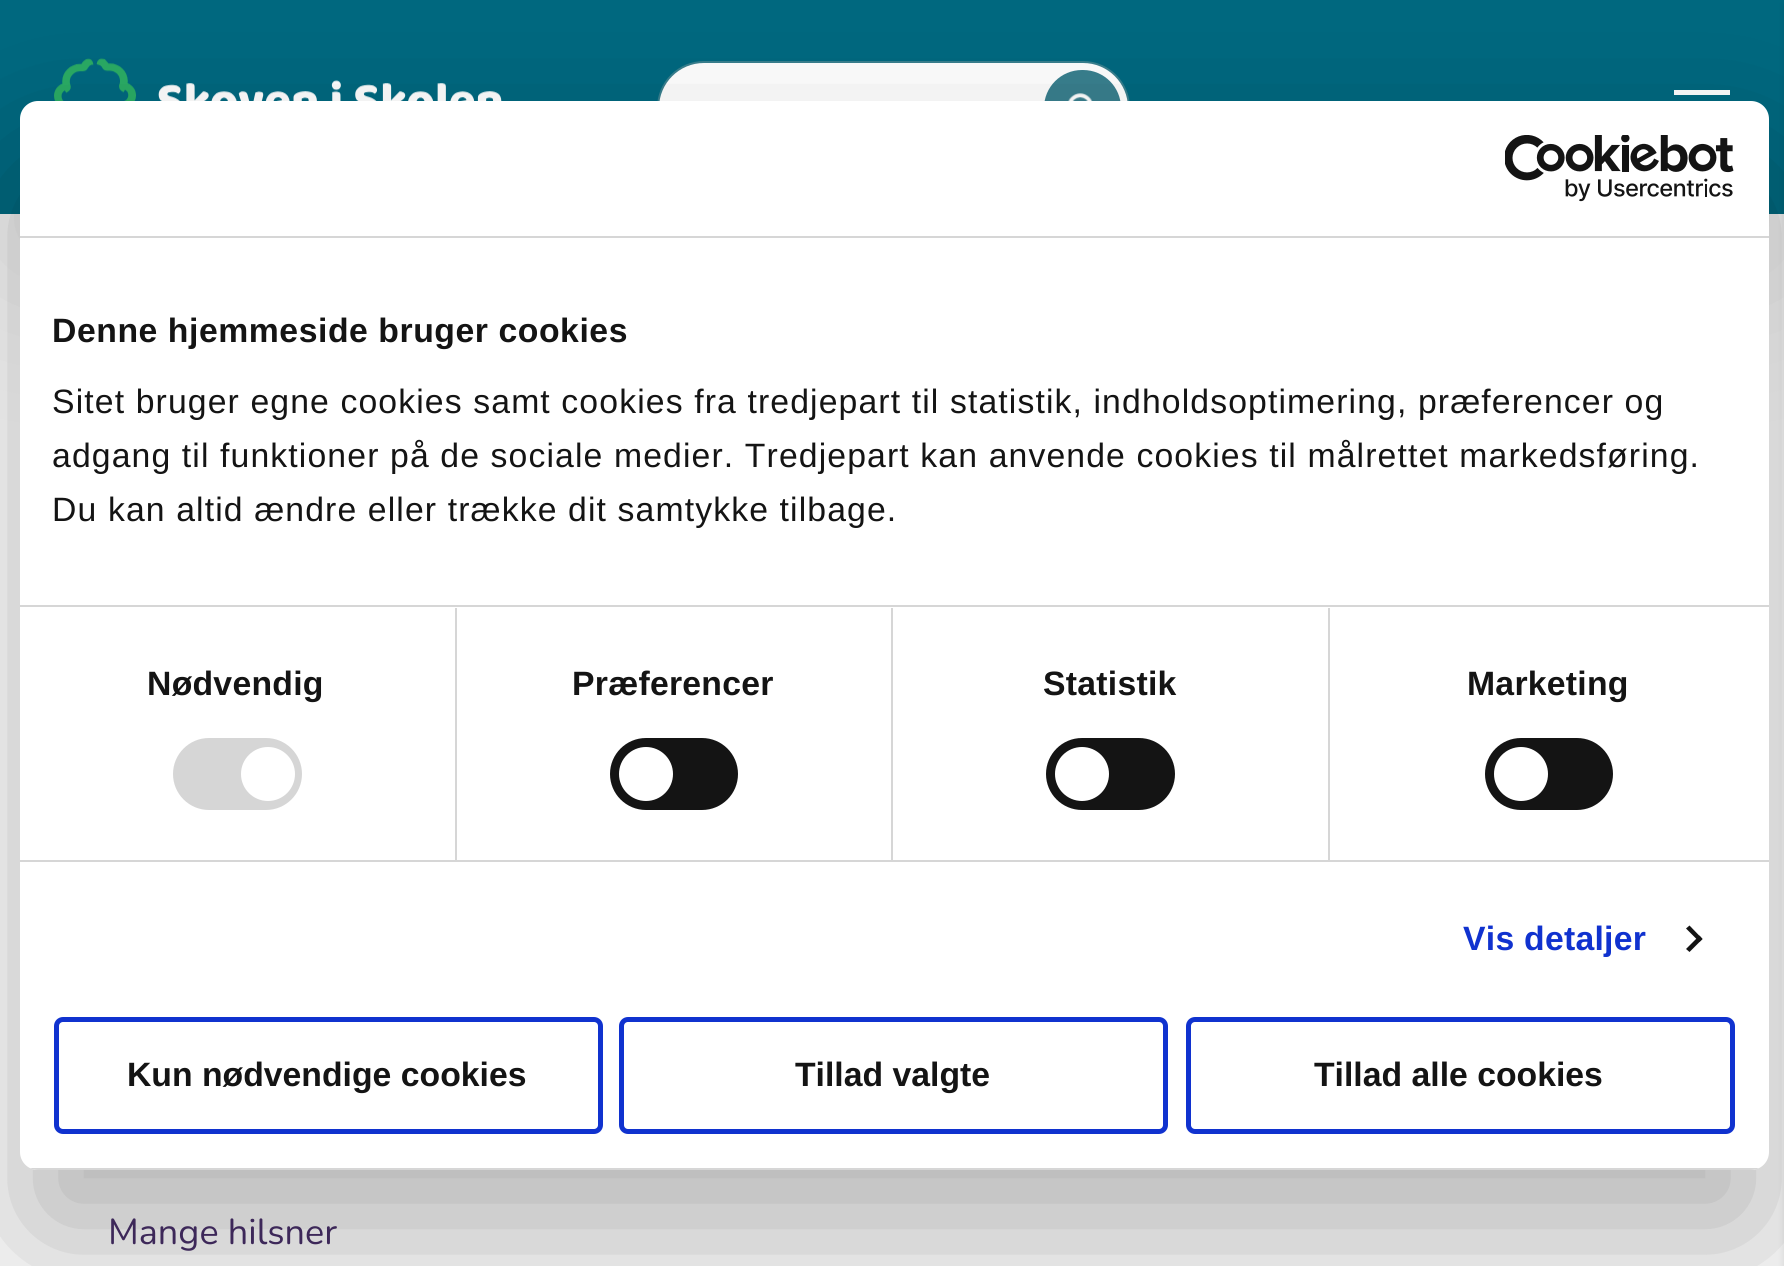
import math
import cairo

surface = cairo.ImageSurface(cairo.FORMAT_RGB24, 1784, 1266)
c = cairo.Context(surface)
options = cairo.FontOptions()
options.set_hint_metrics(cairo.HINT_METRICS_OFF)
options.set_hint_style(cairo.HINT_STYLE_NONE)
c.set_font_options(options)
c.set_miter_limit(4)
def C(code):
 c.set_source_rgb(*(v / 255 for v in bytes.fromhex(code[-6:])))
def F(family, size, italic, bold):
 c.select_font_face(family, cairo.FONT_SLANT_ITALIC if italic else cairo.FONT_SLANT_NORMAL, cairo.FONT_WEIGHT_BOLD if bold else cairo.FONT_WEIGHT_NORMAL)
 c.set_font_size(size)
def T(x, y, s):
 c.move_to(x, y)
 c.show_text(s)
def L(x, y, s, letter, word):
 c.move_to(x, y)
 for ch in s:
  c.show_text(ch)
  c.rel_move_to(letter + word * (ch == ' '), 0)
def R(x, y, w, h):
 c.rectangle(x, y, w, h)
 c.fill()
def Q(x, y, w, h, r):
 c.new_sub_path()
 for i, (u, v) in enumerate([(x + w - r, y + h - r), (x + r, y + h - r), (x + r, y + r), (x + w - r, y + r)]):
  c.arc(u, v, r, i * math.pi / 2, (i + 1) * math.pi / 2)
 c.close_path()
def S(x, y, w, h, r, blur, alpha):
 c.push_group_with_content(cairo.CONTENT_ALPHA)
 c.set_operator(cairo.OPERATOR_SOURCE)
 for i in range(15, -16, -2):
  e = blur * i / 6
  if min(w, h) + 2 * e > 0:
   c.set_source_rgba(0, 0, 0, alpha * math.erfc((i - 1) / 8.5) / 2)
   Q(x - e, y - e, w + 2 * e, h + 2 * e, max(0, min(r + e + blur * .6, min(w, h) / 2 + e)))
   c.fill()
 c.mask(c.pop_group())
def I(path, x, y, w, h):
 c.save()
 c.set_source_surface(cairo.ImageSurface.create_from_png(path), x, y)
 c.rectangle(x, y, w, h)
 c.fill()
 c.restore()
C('ffffff')
c.paint()
C('000000')
S(0,56,1784,214,0,84.5,.1)
C('00687f')
R(0,0,1784,214)
I('2.png',54,58,448,43)
C('ffffff')
Q(658,62,471,92,46)
c.fill_preserve()
C('397f8e')
c.stroke()
Q(1044,70,77,76,38)
c.fill()
I('3.png',1068,93,25,8)
C('ffffff')
R(1674,90,56,5)
C('000000')
S(20,173,1749,1069,18,76.5,.3)
C('ffffff')
Q(20,101,1749,1069,18)
c.fill()
C('d6d6d6')
R(20,236,1749,2)
I('1.png',1505,135,229,67)
R(20,605,1749,2)
F('Liberation Sans',33.75,0,1)
C('141414')
L(52,342,'Denne hjemmeside bruger cookies',.55,0)
F('Liberation Sans',33.75,0,0)
L(52,413,'Sitet bruger egne cookies samt cookies fra tredjepart til statistik, indholdsoptimering, præferencer og',1.12,0)
L(52,467,'adgang til funktioner på de sociale medier. Tredjepart kan anvende cookies til målrettet markedsføring.',1.12,0)
L(52,521,'Du kan altid ændre eller trække dit samtykke tilbage.',1.12,0)
C('d6d6d6')
R(20,860,1749,2)
R(455,608,2,252)
F('Liberation Sans',33.75,0,1)
C('141414')
L(147,695,'Nødvendig',.25,0)
C('d6d6d6')
Q(173,738,129,72,36)
c.fill()
C('ffffff')
c.arc(268,774,27,0,2 * math.pi)
c.fill()
C('d6d6d6')
R(891,608,2,252)
C('141414')
L(572,695,'Præferencer',.25,0)
Q(610,738,128,72,36)
c.fill()
C('ffffff')
c.arc(646,774,27,0,2 * math.pi)
c.fill()
C('d6d6d6')
R(1328,608,2,252)
C('141414')
L(1043,695,'Statistik',.25,0)
Q(1046,738,129,72,36)
c.fill()
C('ffffff')
c.arc(1082,774,27,0,2 * math.pi)
c.fill()
C('141414')
L(1467,695,'Marketing',.25,0)
Q(1485,738,128,72,36)
c.fill()
C('ffffff')
c.arc(1521,774,27,0,2 * math.pi)
c.fill()
C('1032cf')
L(1463,950,'Vis detaljer',.25,0)
C('141414')
c.new_path()
c.move_to(1689.5,925.5)
c.line_to(1702.5,939)
c.line_to(1699.5,942)
c.line_to(1686,928.5)
c.close_path()
c.fill()
c.new_path()
c.move_to(1699.5,935.5)
c.line_to(1702.5,939)
c.line_to(1689.5,952)
c.line_to(1686,949)
c.close_path()
c.fill()
c.save()
Q(20,101,1749,1069,18)
c.clip()
C('d6d6d6')
R(30,1168,1729,2)
c.restore()
Q(56.5,1019.5,544,112,6.5)
C('1032cf')
c.set_line_width(5)
c.stroke()
C('141414')
T(127,1086,'Kun nødvendige cookies')
Q(621.5,1019.5,544,112,6.5)
C('1032cf')
c.stroke()
C('141414')
T(795,1086,'Tillad valgte')
Q(1188.5,1019.5,544,112,6.5)
C('1032cf')
c.stroke()
C('141414')
T(1314,1086,'Tillad alle cookies')
F('Nunito ExtraLight',36,0,0)
C('3d2859')
T(108,1244,'Mange hilsner')
C('000000')
S(1784,5,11,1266,0,3.5,.1)
surface.write_to_png('o.png')
